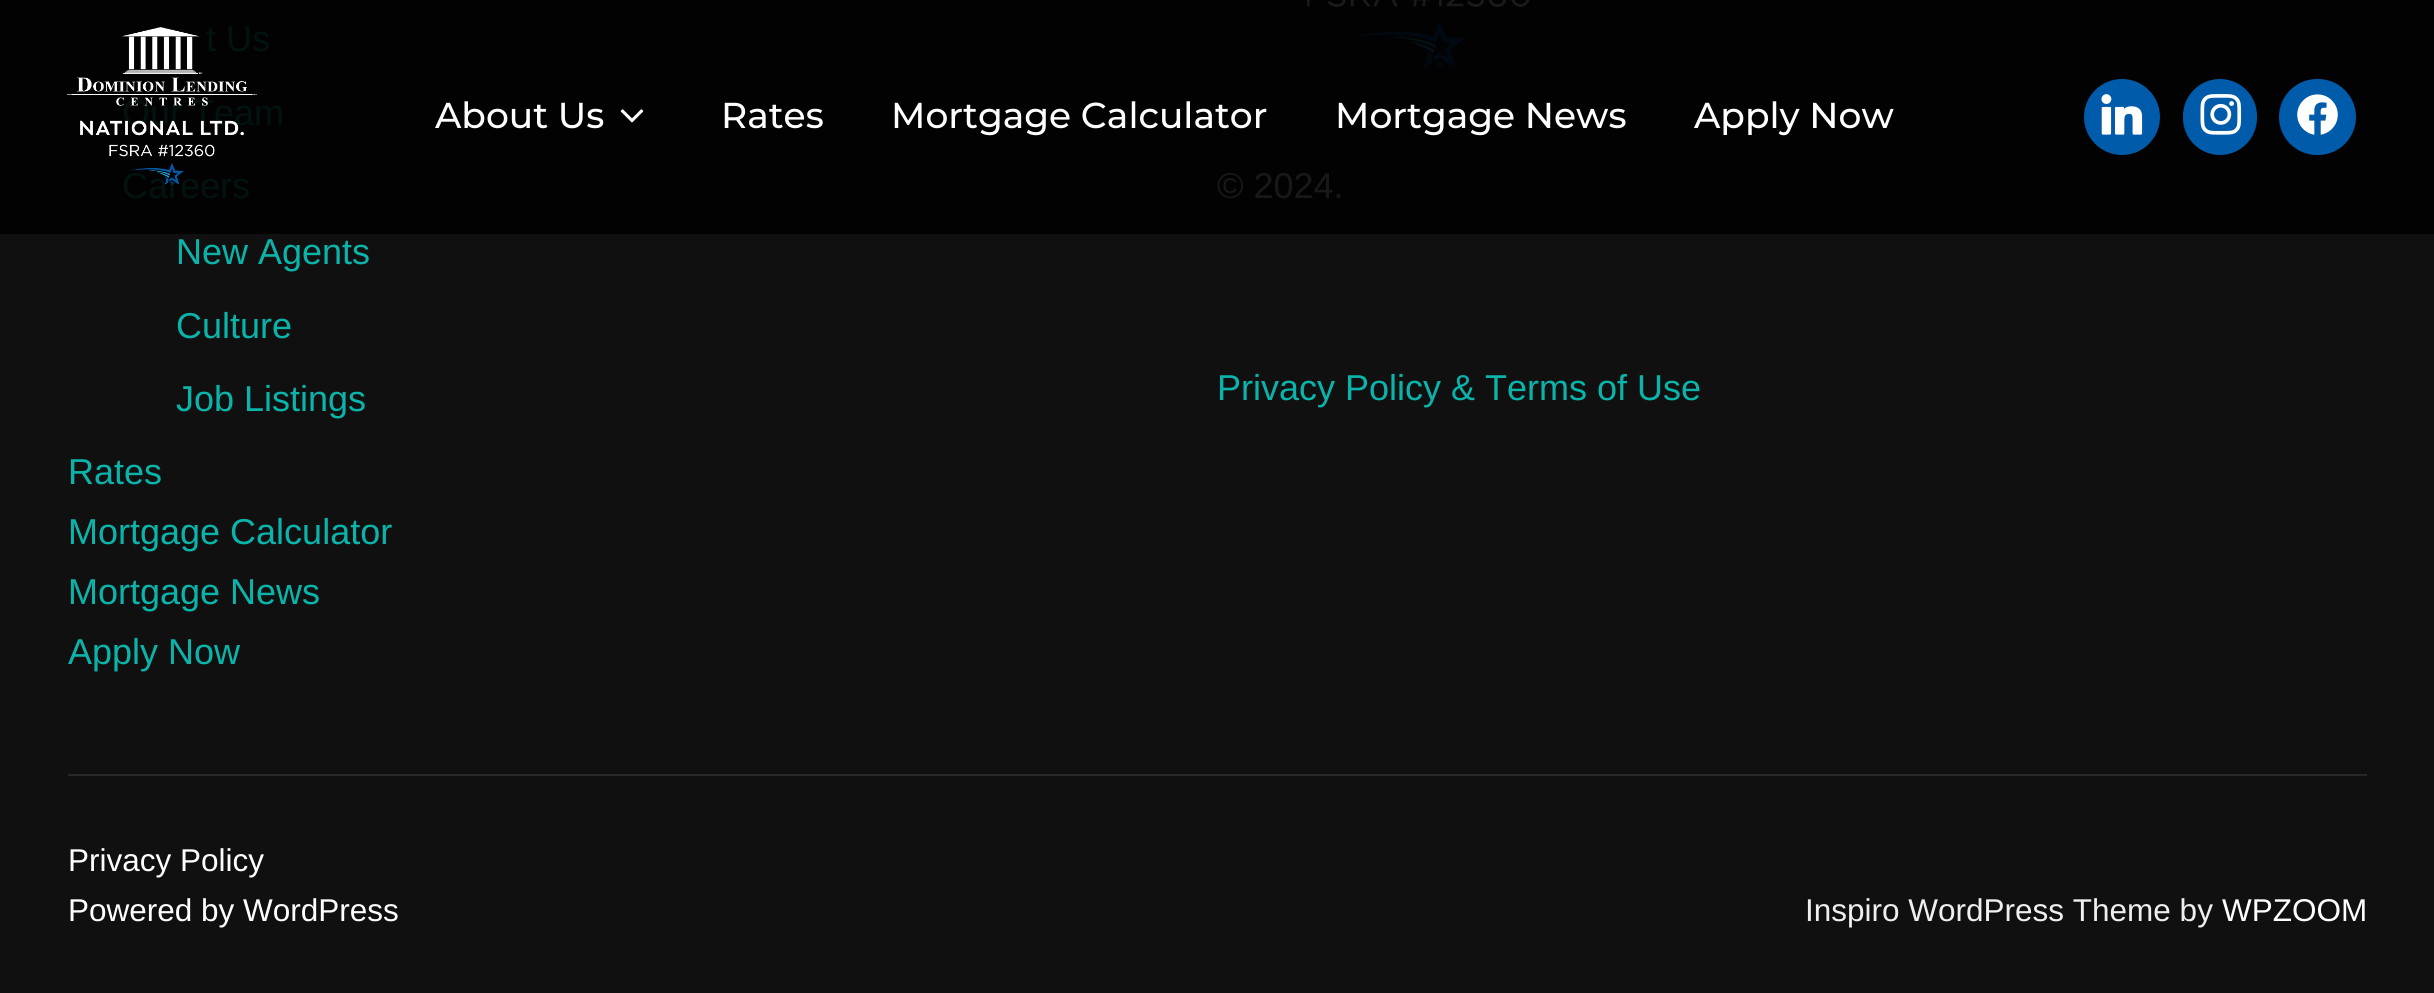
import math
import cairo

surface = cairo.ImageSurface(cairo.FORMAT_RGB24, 2434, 993)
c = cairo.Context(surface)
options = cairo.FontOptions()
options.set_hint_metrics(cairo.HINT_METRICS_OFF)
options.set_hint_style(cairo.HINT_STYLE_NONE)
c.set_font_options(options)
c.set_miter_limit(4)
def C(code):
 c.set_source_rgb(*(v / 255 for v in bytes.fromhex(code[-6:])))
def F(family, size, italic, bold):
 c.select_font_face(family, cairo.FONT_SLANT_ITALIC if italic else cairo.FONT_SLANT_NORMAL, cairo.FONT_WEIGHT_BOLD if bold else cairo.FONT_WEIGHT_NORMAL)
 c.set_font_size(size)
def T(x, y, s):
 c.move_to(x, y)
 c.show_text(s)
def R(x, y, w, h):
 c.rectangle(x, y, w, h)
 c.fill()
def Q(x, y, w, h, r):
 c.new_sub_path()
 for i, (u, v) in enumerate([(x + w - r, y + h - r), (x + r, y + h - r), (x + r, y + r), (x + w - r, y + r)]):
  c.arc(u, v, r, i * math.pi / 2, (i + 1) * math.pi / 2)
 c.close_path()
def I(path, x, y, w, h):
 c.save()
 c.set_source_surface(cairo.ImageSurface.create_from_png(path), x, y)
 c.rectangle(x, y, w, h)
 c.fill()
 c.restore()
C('101010')
c.paint()
C('020202')
R(0,0,2434,234)
F('Liberation Sans',36,0,0)
C('011211')
T(206,51,'t Us')
T(122,125,'Our Team')
T(122,198,'Careers')
C('0bb4aa')
T(176,264,'New Agents')
T(176,338,'Culture')
T(176,411,'Job Listings')
T(68,484,'Rates')
T(68,544,'Mortgage Calculator')
T(68,604,'Mortgage News')
T(68,664,'Apply Now')
I('1.png',1307,0,223,68)
C('181818')
T(1217,198,'© 2024.')
C('0bb4aa')
T(1217,400,'Privacy Policy & Terms of Use')
C('282828')
R(68,774,2299,2)
F('Liberation Sans',31.5,0,0)
C('ffffff')
T(68,871,'Privacy Policy')
T(68,921,'Powered by WordPress')
C('efefef')
T(1805,921,'Inspiro WordPress Theme by')
C('ffffff')
T(2222,921,'WPZOOM')
I('2.png',67,27,190,158)
F('Montserrat Medium',36,0,0)
T(435,128,'About Us')
I('3.png',620,109,24,14)
T(721,128,'Rates')
T(891,128,'Mortgage Calculator')
T(1335,128,'Mortgage News')
T(1694,128,'Apply Now')
C('005baa')
c.new_path()
c.arc(2122,117,38,0,2 * math.pi)
c.fill()
I('4.png',2101,94,42,41)
Q(2183,79,74,76,37)
c.fill()
I('5.png',2200,94,42,41)
Q(2279,79,77,76,38)
c.fill()
I('6.png',2297,94,41,41)
surface.write_to_png('o.png')
